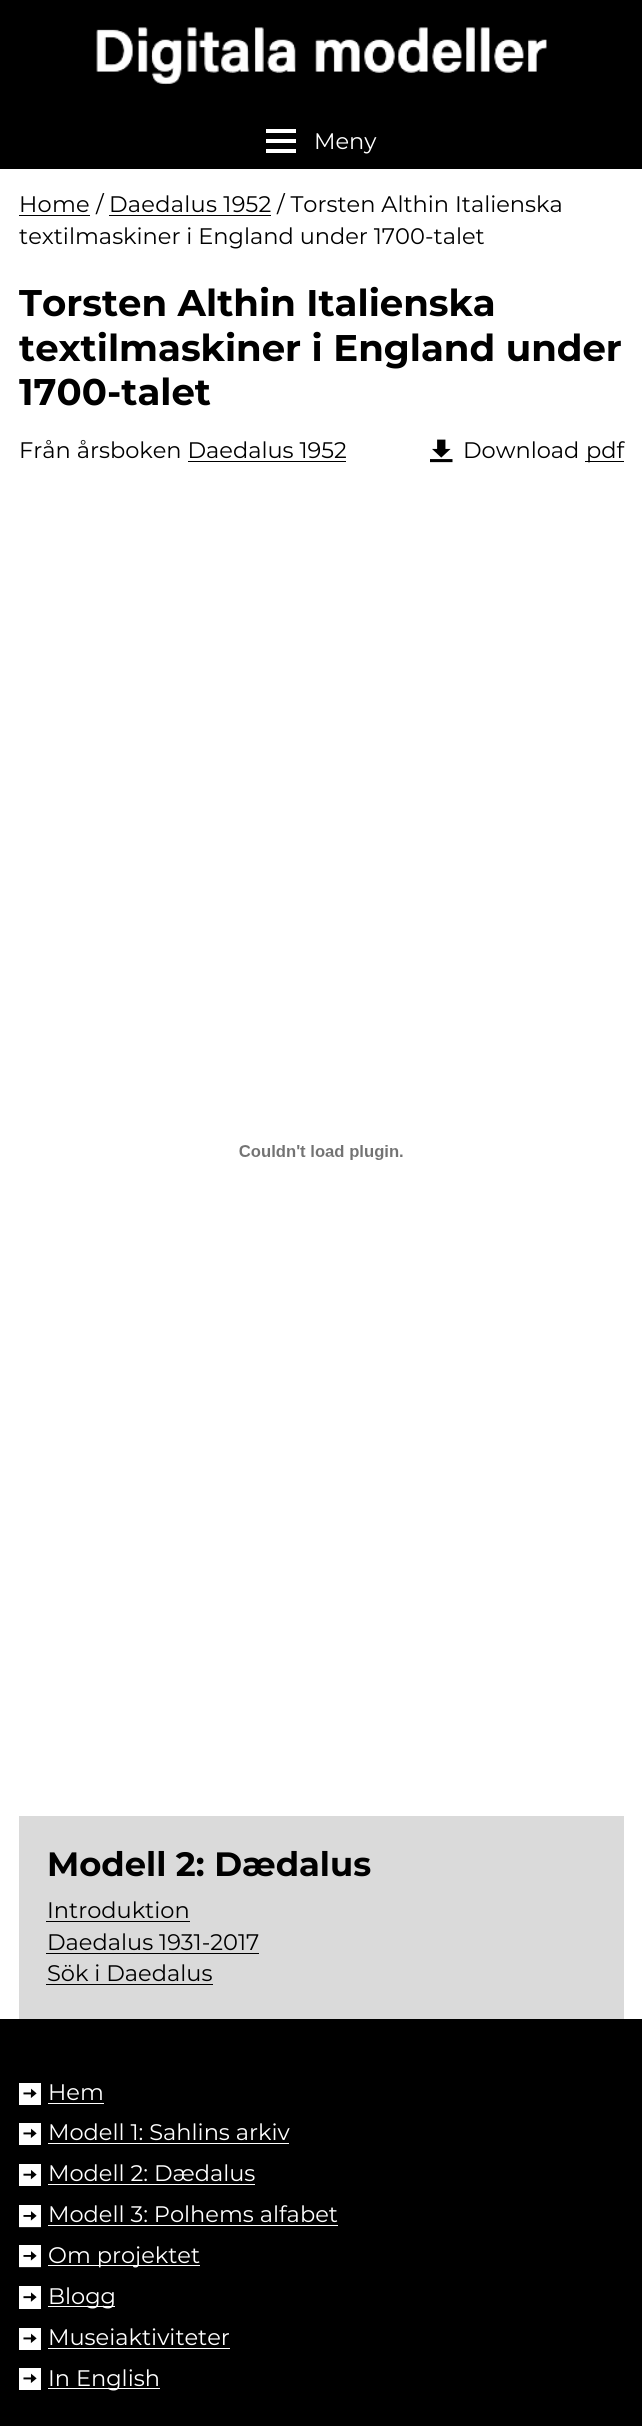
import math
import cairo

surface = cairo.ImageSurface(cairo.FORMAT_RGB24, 642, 2426)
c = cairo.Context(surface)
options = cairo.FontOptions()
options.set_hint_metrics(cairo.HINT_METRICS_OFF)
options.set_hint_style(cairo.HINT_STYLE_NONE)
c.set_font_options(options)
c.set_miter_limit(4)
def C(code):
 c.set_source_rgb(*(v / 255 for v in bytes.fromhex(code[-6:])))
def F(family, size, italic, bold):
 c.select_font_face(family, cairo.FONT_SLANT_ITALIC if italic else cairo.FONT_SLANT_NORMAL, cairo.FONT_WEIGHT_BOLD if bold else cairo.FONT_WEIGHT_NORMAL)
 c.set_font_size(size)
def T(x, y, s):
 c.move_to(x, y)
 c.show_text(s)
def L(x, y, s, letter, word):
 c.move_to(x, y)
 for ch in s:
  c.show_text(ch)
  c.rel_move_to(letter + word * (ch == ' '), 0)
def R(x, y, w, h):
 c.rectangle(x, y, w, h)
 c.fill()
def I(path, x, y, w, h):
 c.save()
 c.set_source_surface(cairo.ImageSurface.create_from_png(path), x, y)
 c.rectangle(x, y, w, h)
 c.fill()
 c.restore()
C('ffffff')
c.paint()
C('000000')
R(0,0,642,169)
I('1.png',96,27,451,58)
C('ffffff')
R(266,129,30,4)
R(266,139,30,4)
R(266,149,30,4)
F('Montserrat',22.5,0,0)
T(314,149,'Meny')
C('000000')
L(19,212,'Home',.25,0)
R(19,215,71,1)
T(96,212,'/')
L(109,212,'Daedalus 1952',.25,0)
R(109,215,162,1)
T(277,212,'/ Torsten Althin Italienska')
T(19,244,'textilmaskiner i England under 1700-talet')
F('Montserrat',37.1,0,1)
T(19,316,'Torsten Althin Italienska')
T(19,361,'textilmaskiner i England under')
T(19,405,'1700-talet')
F('Montserrat',22.5,0,0)
T(19,458,'Från årsboken Daedalus 1952')
R(188,461,158,1)
I('2.png',430,439,23,24)
T(463,458,'Download')
R(585,461,39,1)
T(586,458,'pdf')
I('3.png',239,1145,164,15)
C('dadada')
R(19,1816,605,203)
F('Montserrat',33.75,0,1)
C('000000')
T(47,1876,'Modell 2: Dædalus')
F('Montserrat',22.5,0,0)
T(47,1918,'Introduktion')
R(46,1921,144,1)
T(47,1950,'Daedalus 1931-2017')
R(46,1953,213,1)
T(47,1981,'Sök i Daedalus')
R(46,1984,167,1)
R(0,2019,642,407)
C('ffffff')
R(19,2104,22,1)
I('4.png',19,2083,22,21)
T(48,2100,'Hem')
R(48,2103,56,1)
R(19,2144,22,1)
I('4.png',19,2123,22,21)
T(48,2140,'Modell 1: Sahlins arkiv')
R(48,2143,241,1)
R(19,2185,22,1)
I('5.png',19,2164,22,21)
T(48,2181,'Modell 2: Dædalus')
R(48,2184,207,1)
I('6.png',19,2205,22,23)
T(48,2222,'Modell 3: Polhems alfabet')
R(48,2225,290,1)
I('6.png',19,2245,22,23)
R(48,2265,152,1)
T(48,2263,'Om projektet')
R(19,2308,22,1)
I('7.png',19,2286,22,22)
R(48,2306,67,1)
T(48,2304,'Blogg')
R(19,2349,22,1)
I('4.png',19,2328,22,21)
T(48,2345,'Museiaktiviteter')
R(48,2348,182,1)
R(19,2389,22,1)
I('4.png',19,2368,22,21)
R(48,2388,112,1)
T(48,2386,'In English')
surface.write_to_png('o.png')
